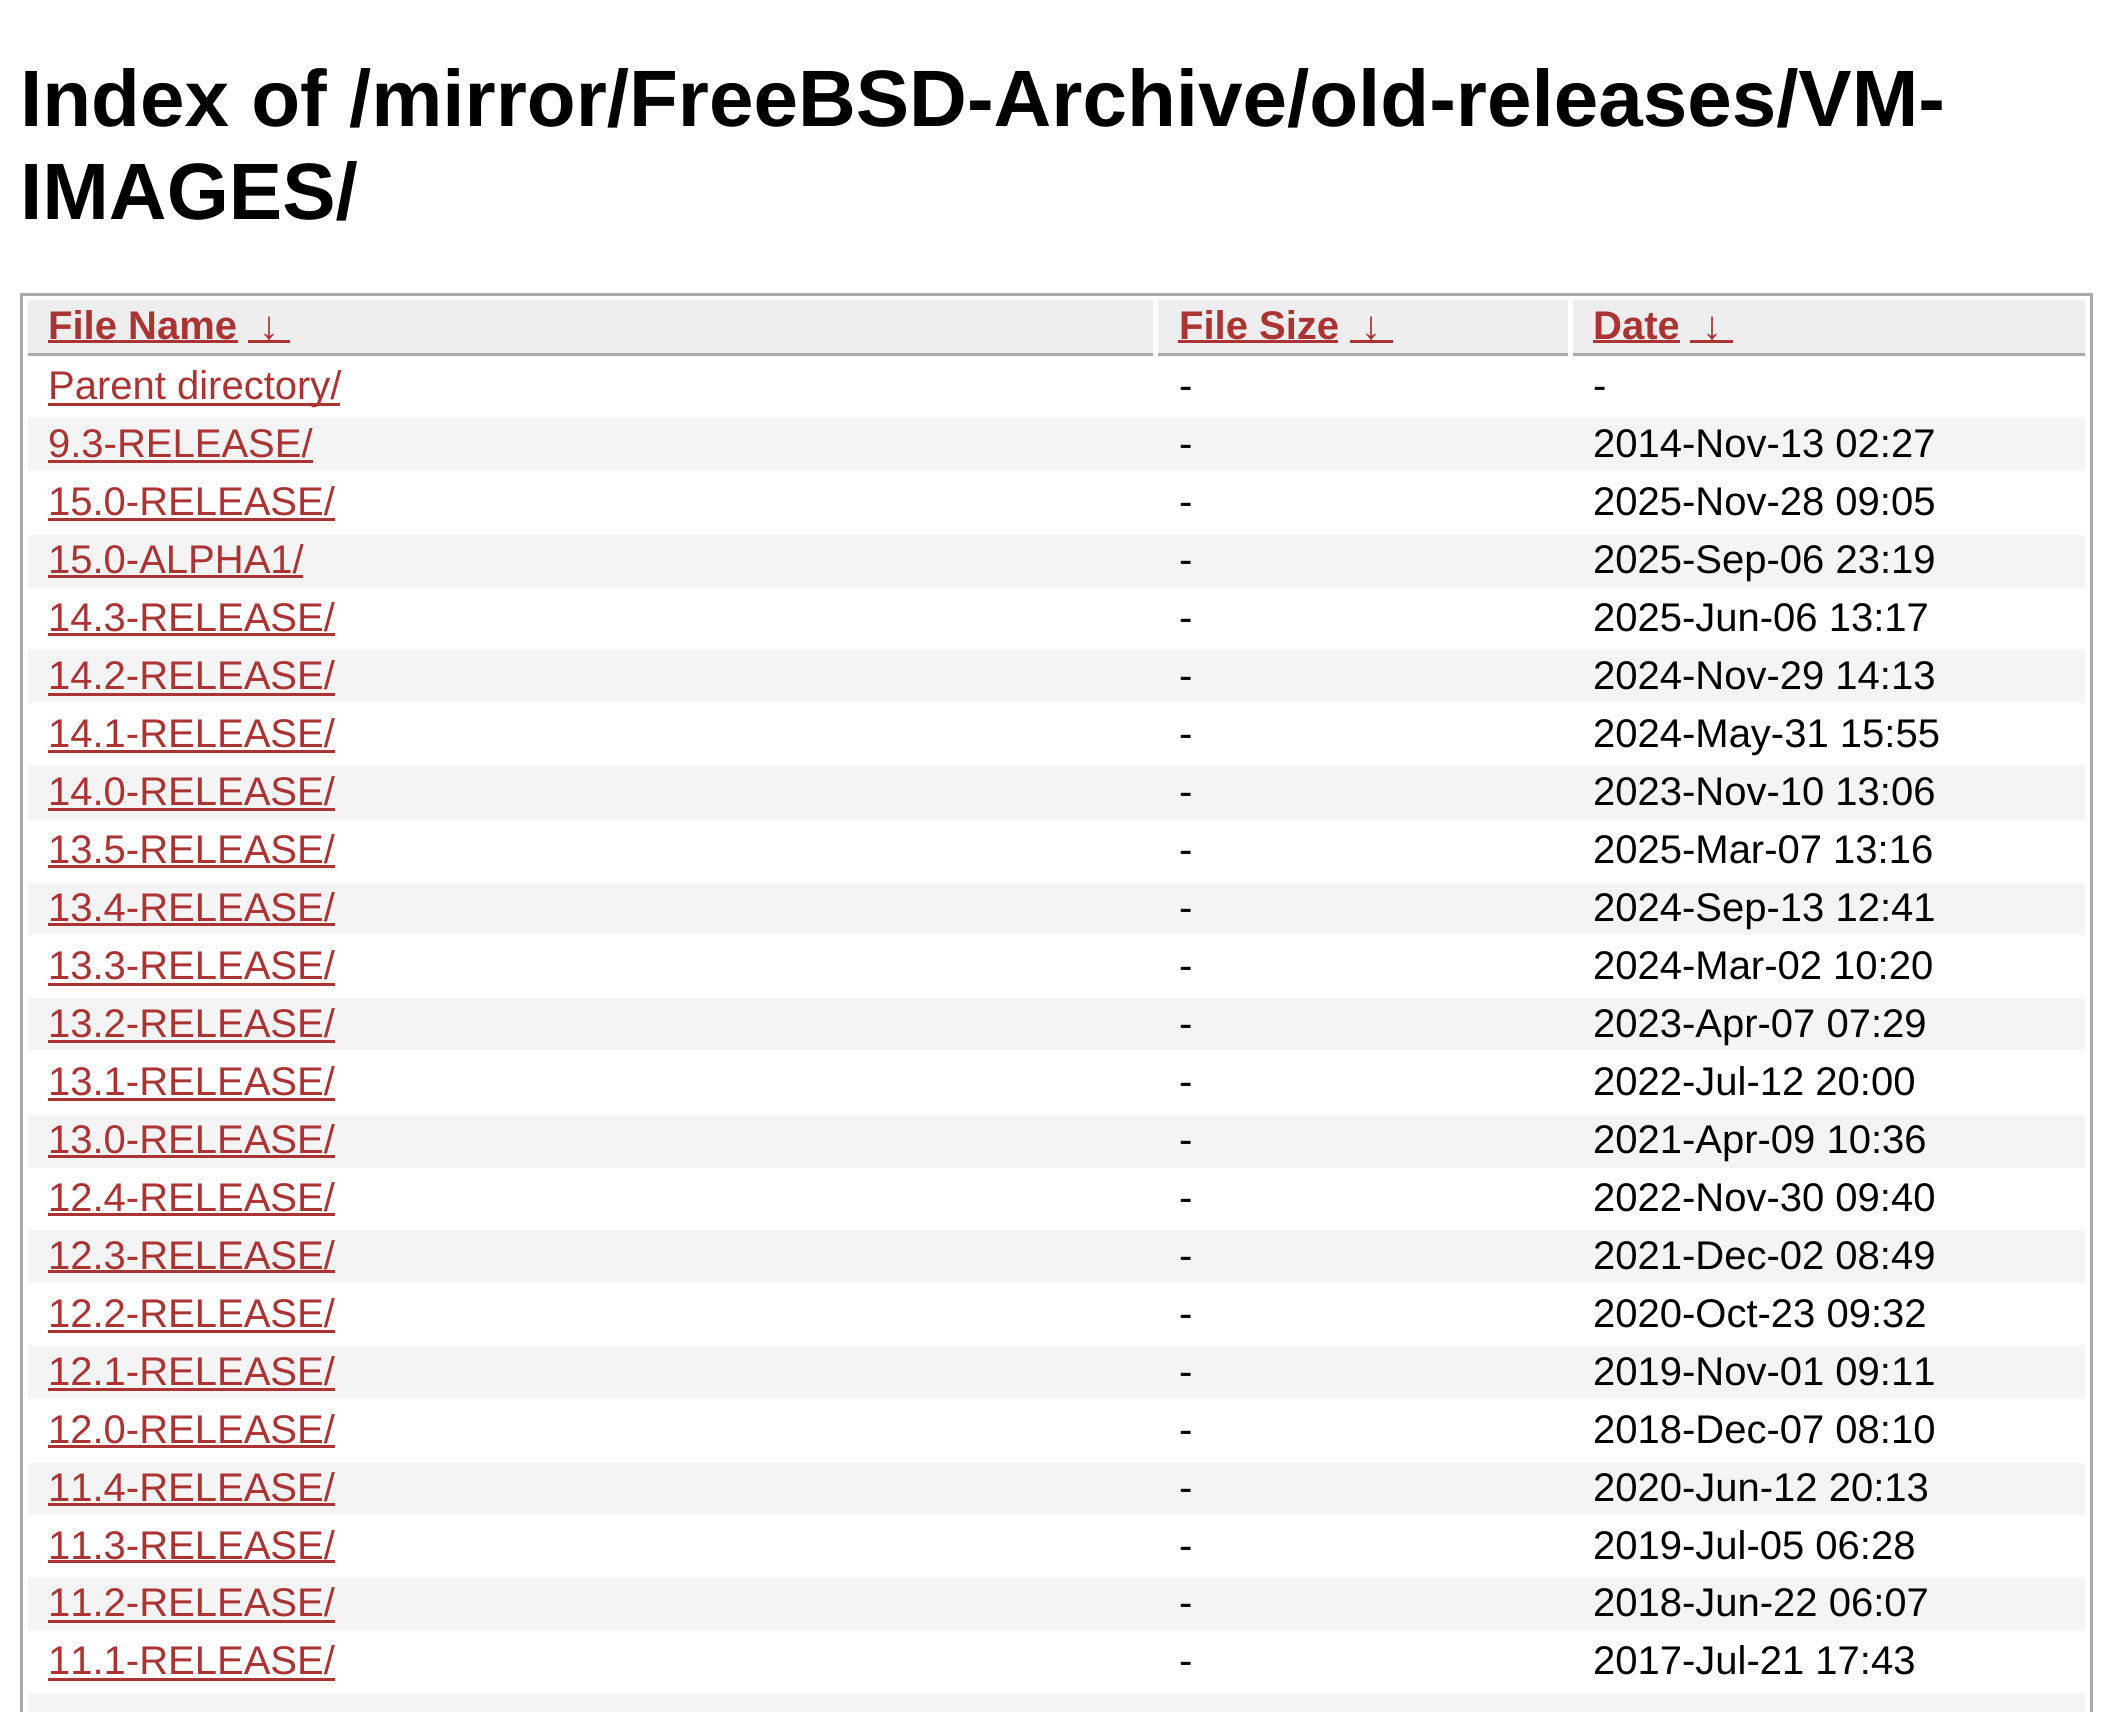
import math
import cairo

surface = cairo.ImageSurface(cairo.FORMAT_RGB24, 2112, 1712)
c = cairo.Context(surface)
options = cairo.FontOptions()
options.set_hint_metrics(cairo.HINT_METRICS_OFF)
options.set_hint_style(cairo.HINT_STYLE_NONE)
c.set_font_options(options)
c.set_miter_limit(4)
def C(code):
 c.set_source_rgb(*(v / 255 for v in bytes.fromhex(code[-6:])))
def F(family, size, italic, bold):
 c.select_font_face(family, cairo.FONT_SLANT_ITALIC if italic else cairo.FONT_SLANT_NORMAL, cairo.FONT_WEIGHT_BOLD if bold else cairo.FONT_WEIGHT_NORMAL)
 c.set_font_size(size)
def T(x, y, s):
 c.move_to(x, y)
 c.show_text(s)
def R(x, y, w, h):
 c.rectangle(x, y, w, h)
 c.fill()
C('ffffff')
c.paint()
F('Liberation Sans',80,0,1)
C('000000')
T(20,126,'Index of /mirror/FreeBSD-Archive/old-releases/VM-')
T(20,219,'IMAGES/')
c.rectangle(21.5,294.5,2070,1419)
C('aaaaaa')
c.set_line_width(3)
c.stroke()
C('eeeeee')
R(28,300,1125,53)
C('aaaaaa')
R(28,353,1125,3)
F('Liberation Sans',40,0,1)
C('aa3333')
T(48,339,'File Name')
R(48,340,190,3)
R(248,340,42,3)
T(259,339,'↓')
C('eeeeee')
R(1158,300,410,53)
C('aaaaaa')
R(1158,353,410,3)
C('aa3333')
T(1179,339,'File Size')
R(1178,340,160,3)
R(1350,340,43,3)
T(1361,339,'↓')
C('eeeeee')
R(1573,300,512,53)
C('aaaaaa')
R(1573,353,512,3)
C('aa3333')
T(1593,339,'Date')
R(1593,340,87,3)
R(1690,340,43,3)
T(1702,339,'↓')
R(48,403,292,3)
F('Liberation Sans',40,0,0)
T(48,399,'Parent directory/')
C('000000')
T(1179,399,'-')
T(1593,399,'-')
C('f4f4f4')
R(28,418,2057,52)
C('aa3333')
T(48,457,'9.3-RELEASE/')
R(48,460,265,3)
C('000000')
T(1179,457,'-')
T(1593,457,'2014-Nov-13 02:27')
C('aa3333')
T(48,515,'15.0-RELEASE/')
R(48,518,287,3)
C('000000')
T(1179,515,'-')
T(1593,515,'2025-Nov-28 09:05')
C('f4f4f4')
R(28,535,2057,53)
C('aa3333')
T(48,573,'15.0-ALPHA1/')
R(48,575,255,3)
C('000000')
T(1179,573,'-')
T(1593,573,'2025-Sep-06 23:19')
C('aa3333')
T(48,631,'14.3-RELEASE/')
R(48,633,287,3)
C('000000')
T(1179,631,'-')
T(1593,631,'2025-Jun-06 13:17')
C('f4f4f4')
R(28,650,2057,53)
C('aa3333')
T(48,689,'14.2-RELEASE/')
R(48,693,287,3)
C('000000')
T(1179,689,'-')
T(1593,689,'2024-Nov-29 14:13')
C('aa3333')
T(48,747,'14.1-RELEASE/')
R(48,750,287,3)
C('000000')
T(1179,747,'-')
T(1593,747,'2024-May-31 15:55')
C('f4f4f4')
R(28,765,2057,55)
C('aa3333')
T(48,805,'14.0-RELEASE/')
R(48,808,287,3)
C('000000')
T(1179,805,'-')
T(1593,805,'2023-Nov-10 13:06')
C('aa3333')
T(48,863,'13.5-RELEASE/')
R(48,865,287,3)
C('000000')
T(1179,863,'-')
T(1593,863,'2025-Mar-07 13:16')
C('f4f4f4')
R(28,883,2057,52)
C('aa3333')
T(48,921,'13.4-RELEASE/')
R(48,923,287,3)
C('000000')
T(1179,921,'-')
T(1593,921,'2024-Sep-13 12:41')
C('aa3333')
T(48,979,'13.3-RELEASE/')
R(48,983,287,3)
C('000000')
T(1179,979,'-')
T(1593,979,'2024-Mar-02 10:20')
C('f4f4f4')
R(28,998,2057,52)
C('aa3333')
T(48,1037,'13.2-RELEASE/')
R(48,1040,287,3)
C('000000')
T(1179,1037,'-')
T(1593,1037,'2023-Apr-07 07:29')
C('aa3333')
T(48,1095,'13.1-RELEASE/')
R(48,1098,287,3)
C('000000')
T(1179,1095,'-')
T(1593,1095,'2022-Jul-12 20:00')
C('f4f4f4')
R(28,1115,2057,53)
C('aa3333')
T(48,1153,'13.0-RELEASE/')
R(48,1155,287,3)
C('000000')
T(1179,1153,'-')
T(1593,1153,'2021-Apr-09 10:36')
C('aa3333')
T(48,1211,'12.4-RELEASE/')
R(48,1213,287,3)
C('000000')
T(1179,1211,'-')
T(1593,1211,'2022-Nov-30 09:40')
C('f4f4f4')
R(28,1230,2057,53)
C('aa3333')
T(48,1269,'12.3-RELEASE/')
R(48,1270,287,3)
C('000000')
T(1179,1269,'-')
T(1593,1269,'2021-Dec-02 08:49')
C('aa3333')
T(48,1327,'12.2-RELEASE/')
R(48,1330,287,3)
C('000000')
T(1179,1327,'-')
T(1593,1327,'2020-Oct-23 09:32')
C('f4f4f4')
R(28,1345,2057,53)
C('aa3333')
T(48,1385,'12.1-RELEASE/')
R(48,1388,287,3)
C('000000')
T(1179,1385,'-')
T(1593,1385,'2019-Nov-01 09:11')
C('aa3333')
T(48,1443,'12.0-RELEASE/')
R(48,1445,287,3)
C('000000')
T(1179,1443,'-')
T(1593,1443,'2018-Dec-07 08:10')
C('f4f4f4')
R(28,1463,2057,52)
C('aa3333')
T(48,1501,'11.4-RELEASE/')
R(48,1503,287,3)
C('000000')
T(1179,1501,'-')
T(1593,1501,'2020-Jun-12 20:13')
C('aa3333')
T(48,1559,'11.3-RELEASE/')
R(48,1560,287,3)
C('000000')
T(1179,1559,'-')
T(1593,1559,'2019-Jul-05 06:28')
C('f4f4f4')
R(28,1578,2057,52)
C('aa3333')
T(48,1616,'11.2-RELEASE/')
R(48,1620,287,3)
C('000000')
T(1179,1616,'-')
T(1593,1616,'2018-Jun-22 06:07')
C('aa3333')
T(48,1674,'11.1-RELEASE/')
R(48,1678,287,3)
C('000000')
T(1179,1674,'-')
T(1593,1674,'2017-Jul-21 17:43')
C('f4f4f4')
R(28,1693,2057,19)
surface.write_to_png('o.png')
